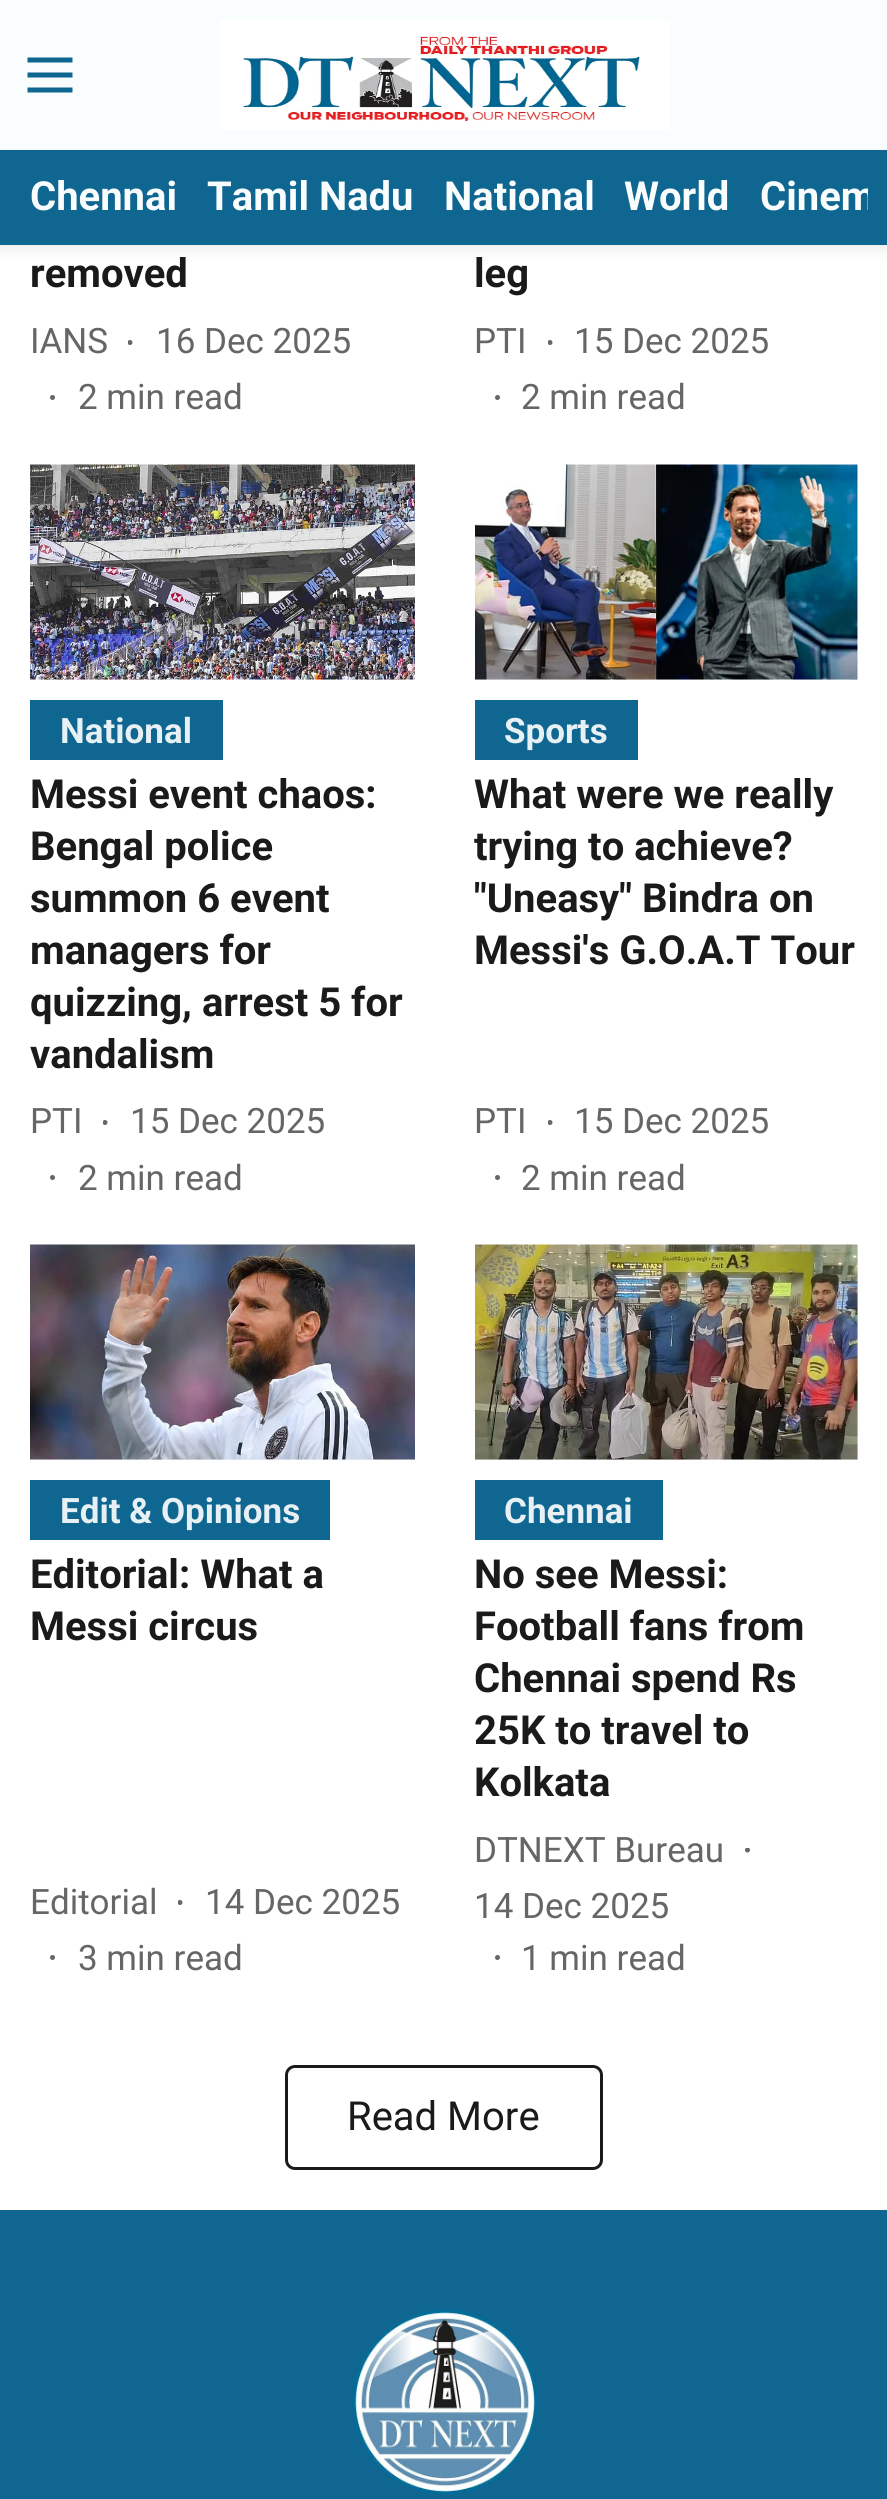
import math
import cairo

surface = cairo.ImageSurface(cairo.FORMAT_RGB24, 887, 2499)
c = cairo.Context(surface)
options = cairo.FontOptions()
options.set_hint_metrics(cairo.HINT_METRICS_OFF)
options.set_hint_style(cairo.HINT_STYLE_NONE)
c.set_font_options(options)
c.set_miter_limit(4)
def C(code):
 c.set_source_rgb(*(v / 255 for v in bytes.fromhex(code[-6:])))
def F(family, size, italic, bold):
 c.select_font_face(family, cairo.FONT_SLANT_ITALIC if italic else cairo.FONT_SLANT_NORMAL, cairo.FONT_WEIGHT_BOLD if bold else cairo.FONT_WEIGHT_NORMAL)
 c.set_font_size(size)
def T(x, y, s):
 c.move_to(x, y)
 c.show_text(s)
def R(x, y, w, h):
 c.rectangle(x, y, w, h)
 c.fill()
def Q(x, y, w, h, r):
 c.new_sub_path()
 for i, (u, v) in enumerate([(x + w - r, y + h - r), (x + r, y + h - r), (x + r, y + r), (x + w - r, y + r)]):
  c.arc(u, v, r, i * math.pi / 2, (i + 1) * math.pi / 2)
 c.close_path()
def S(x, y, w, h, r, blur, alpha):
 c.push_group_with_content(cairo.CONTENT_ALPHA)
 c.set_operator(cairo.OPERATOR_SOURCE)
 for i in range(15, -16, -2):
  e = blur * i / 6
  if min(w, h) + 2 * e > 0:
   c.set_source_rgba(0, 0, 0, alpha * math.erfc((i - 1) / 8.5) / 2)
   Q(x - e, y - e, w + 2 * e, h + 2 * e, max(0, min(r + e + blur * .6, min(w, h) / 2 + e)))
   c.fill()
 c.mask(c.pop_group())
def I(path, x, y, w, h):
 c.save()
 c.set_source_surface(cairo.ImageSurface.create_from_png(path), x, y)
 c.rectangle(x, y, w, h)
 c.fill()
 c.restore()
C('ffffff')
c.paint()
C('000000')
S(0,3,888,245,0,7.5,.1)
C('fafdfe')
R(0,0,887,150)
I('1.png',27,57,46,36)
I('2.png',220,20,450,110)
C('0f6690')
R(0,150,887,95)
F('Roboto',40,0,1)
C('fafdfe')
T(30,210,'Chennai')
T(207,210,'Tamil Nadu')
T(444,210,'National')
T(624,210,'World')
c.save()
c.rectangle(0,150,868,95)
c.clip()
T(760,210,'Cinem')
c.restore()
C('1a1a1a')
T(30,287,'removed')
F('Roboto',35,0,0)
C('666666')
T(30,353,'IANS')
c.save()
c.rectangle(128,340,8,8)
c.clip()
c.arc(130,342.5,2.5,0,2 * math.pi)
c.fill()
c.restore()
T(156,353,'16 Dec 2025')
c.new_path()
c.arc(52.5,397.5,2.5,0,2 * math.pi)
c.fill()
T(78,409,'2 min read')
F('Roboto',40,0,1)
C('1a1a1a')
T(474,287,'leg')
F('Roboto',35,0,0)
C('666666')
T(474,353,'PTI')
c.save()
c.rectangle(548,340,8,8)
c.clip()
c.arc(550,342.5,2.5,0,2 * math.pi)
c.fill()
c.restore()
T(574,353,'15 Dec 2025')
c.new_path()
c.arc(497.5,397.5,2.5,0,2 * math.pi)
c.fill()
T(521,409,'2 min read')
C('f0f0f0')
R(30,679,385,1)
I('3.png',30,464,385,216)
C('0f6690')
R(30,700,193,60)
F('Roboto',35,0,1)
C('e7f0f4')
T(60,743,'National')
F('Roboto',40,0,1)
C('1a1a1a')
T(30,808,'Messi event chaos:')
T(30,860,'Bengal police')
T(30,912,'summon 6 event')
T(30,964,'managers for')
T(30,1016,'quizzing, arrest 5 for')
T(30,1068,'vandalism')
F('Roboto',35,0,0)
C('666666')
T(30,1133,'PTI')
c.save()
c.rectangle(103,1120,8,8)
c.clip()
c.arc(105,1122.5,2.5,0,2 * math.pi)
c.fill()
c.restore()
T(130,1133,'15 Dec 2025')
c.new_path()
c.arc(52.5,1177.5,2.5,0,2 * math.pi)
c.fill()
T(78,1190,'2 min read')
C('f0f0f0')
R(475,465,383,215)
I('4.png',475,464,383,216)
C('0f6690')
R(475,700,163,60)
F('Roboto',35,0,1)
C('e7f0f4')
T(504,743,'Sports')
F('Roboto',40,0,1)
C('1a1a1a')
T(474,808,'What were we really')
T(474,860,'trying to achieve?')
T(474,912,'"Uneasy" Bindra on')
T(474,964,'Messi\'s G.O.A.T Tour')
F('Roboto',35,0,0)
C('666666')
T(474,1133,'PTI')
c.save()
c.rectangle(548,1120,8,8)
c.clip()
c.arc(550,1122.5,2.5,0,2 * math.pi)
c.fill()
c.restore()
T(574,1133,'15 Dec 2025')
c.new_path()
c.arc(497.5,1177.5,2.5,0,2 * math.pi)
c.fill()
T(521,1190,'2 min read')
C('f0f0f0')
R(30,1459,385,1)
I('5.png',30,1244,385,216)
C('0f6690')
R(30,1480,300,60)
F('Roboto',35,0,1)
C('e7f0f4')
T(60,1523,'Edit & Opinions')
F('Roboto',40,0,1)
C('1a1a1a')
T(30,1588,'Editorial: What a')
T(30,1640,'Messi circus')
F('Roboto',35,0,0)
C('666666')
T(30,1914,'Editorial')
c.save()
c.rectangle(178,1900,8,8)
c.clip()
c.arc(180,1902.5,2.5,0,2 * math.pi)
c.fill()
c.restore()
T(205,1914,'14 Dec 2025')
c.new_path()
c.arc(52.5,1957.5,2.5,0,2 * math.pi)
c.fill()
T(78,1970,'3 min read')
C('f0f0f0')
R(475,1245,383,215)
I('6.png',475,1244,383,216)
C('0f6690')
R(475,1480,188,60)
F('Roboto',35,0,1)
C('e7f0f4')
T(504,1523,'Chennai')
F('Roboto',40,0,1)
C('1a1a1a')
T(474,1588,'No see Messi:')
T(474,1640,'Football fans from')
T(474,1692,'Chennai spend Rs')
T(474,1744,'25K to travel to')
T(474,1796,'Kolkata')
F('Roboto',35,0,0)
C('666666')
T(474,1862,'DTNEXT Bureau')
c.save()
c.rectangle(745,1848,8,8)
c.clip()
c.arc(747.5,1850,2.5,0,2 * math.pi)
c.fill()
c.restore()
T(474,1918,'14 Dec 2025')
c.new_path()
c.arc(497.5,1957.5,2.5,0,2 * math.pi)
c.fill()
T(521,1970,'1 min read')
Q(286.5,2066.5,315,102,8.5)
C('1a1a1a')
c.set_line_width(3)
c.stroke()
F('Roboto',40,0,0)
T(347,2130,'Read More')
C('0f6690')
R(0,2210,887,289)
I('7.png',352,2309,186,186)
surface.write_to_png('o.png')
